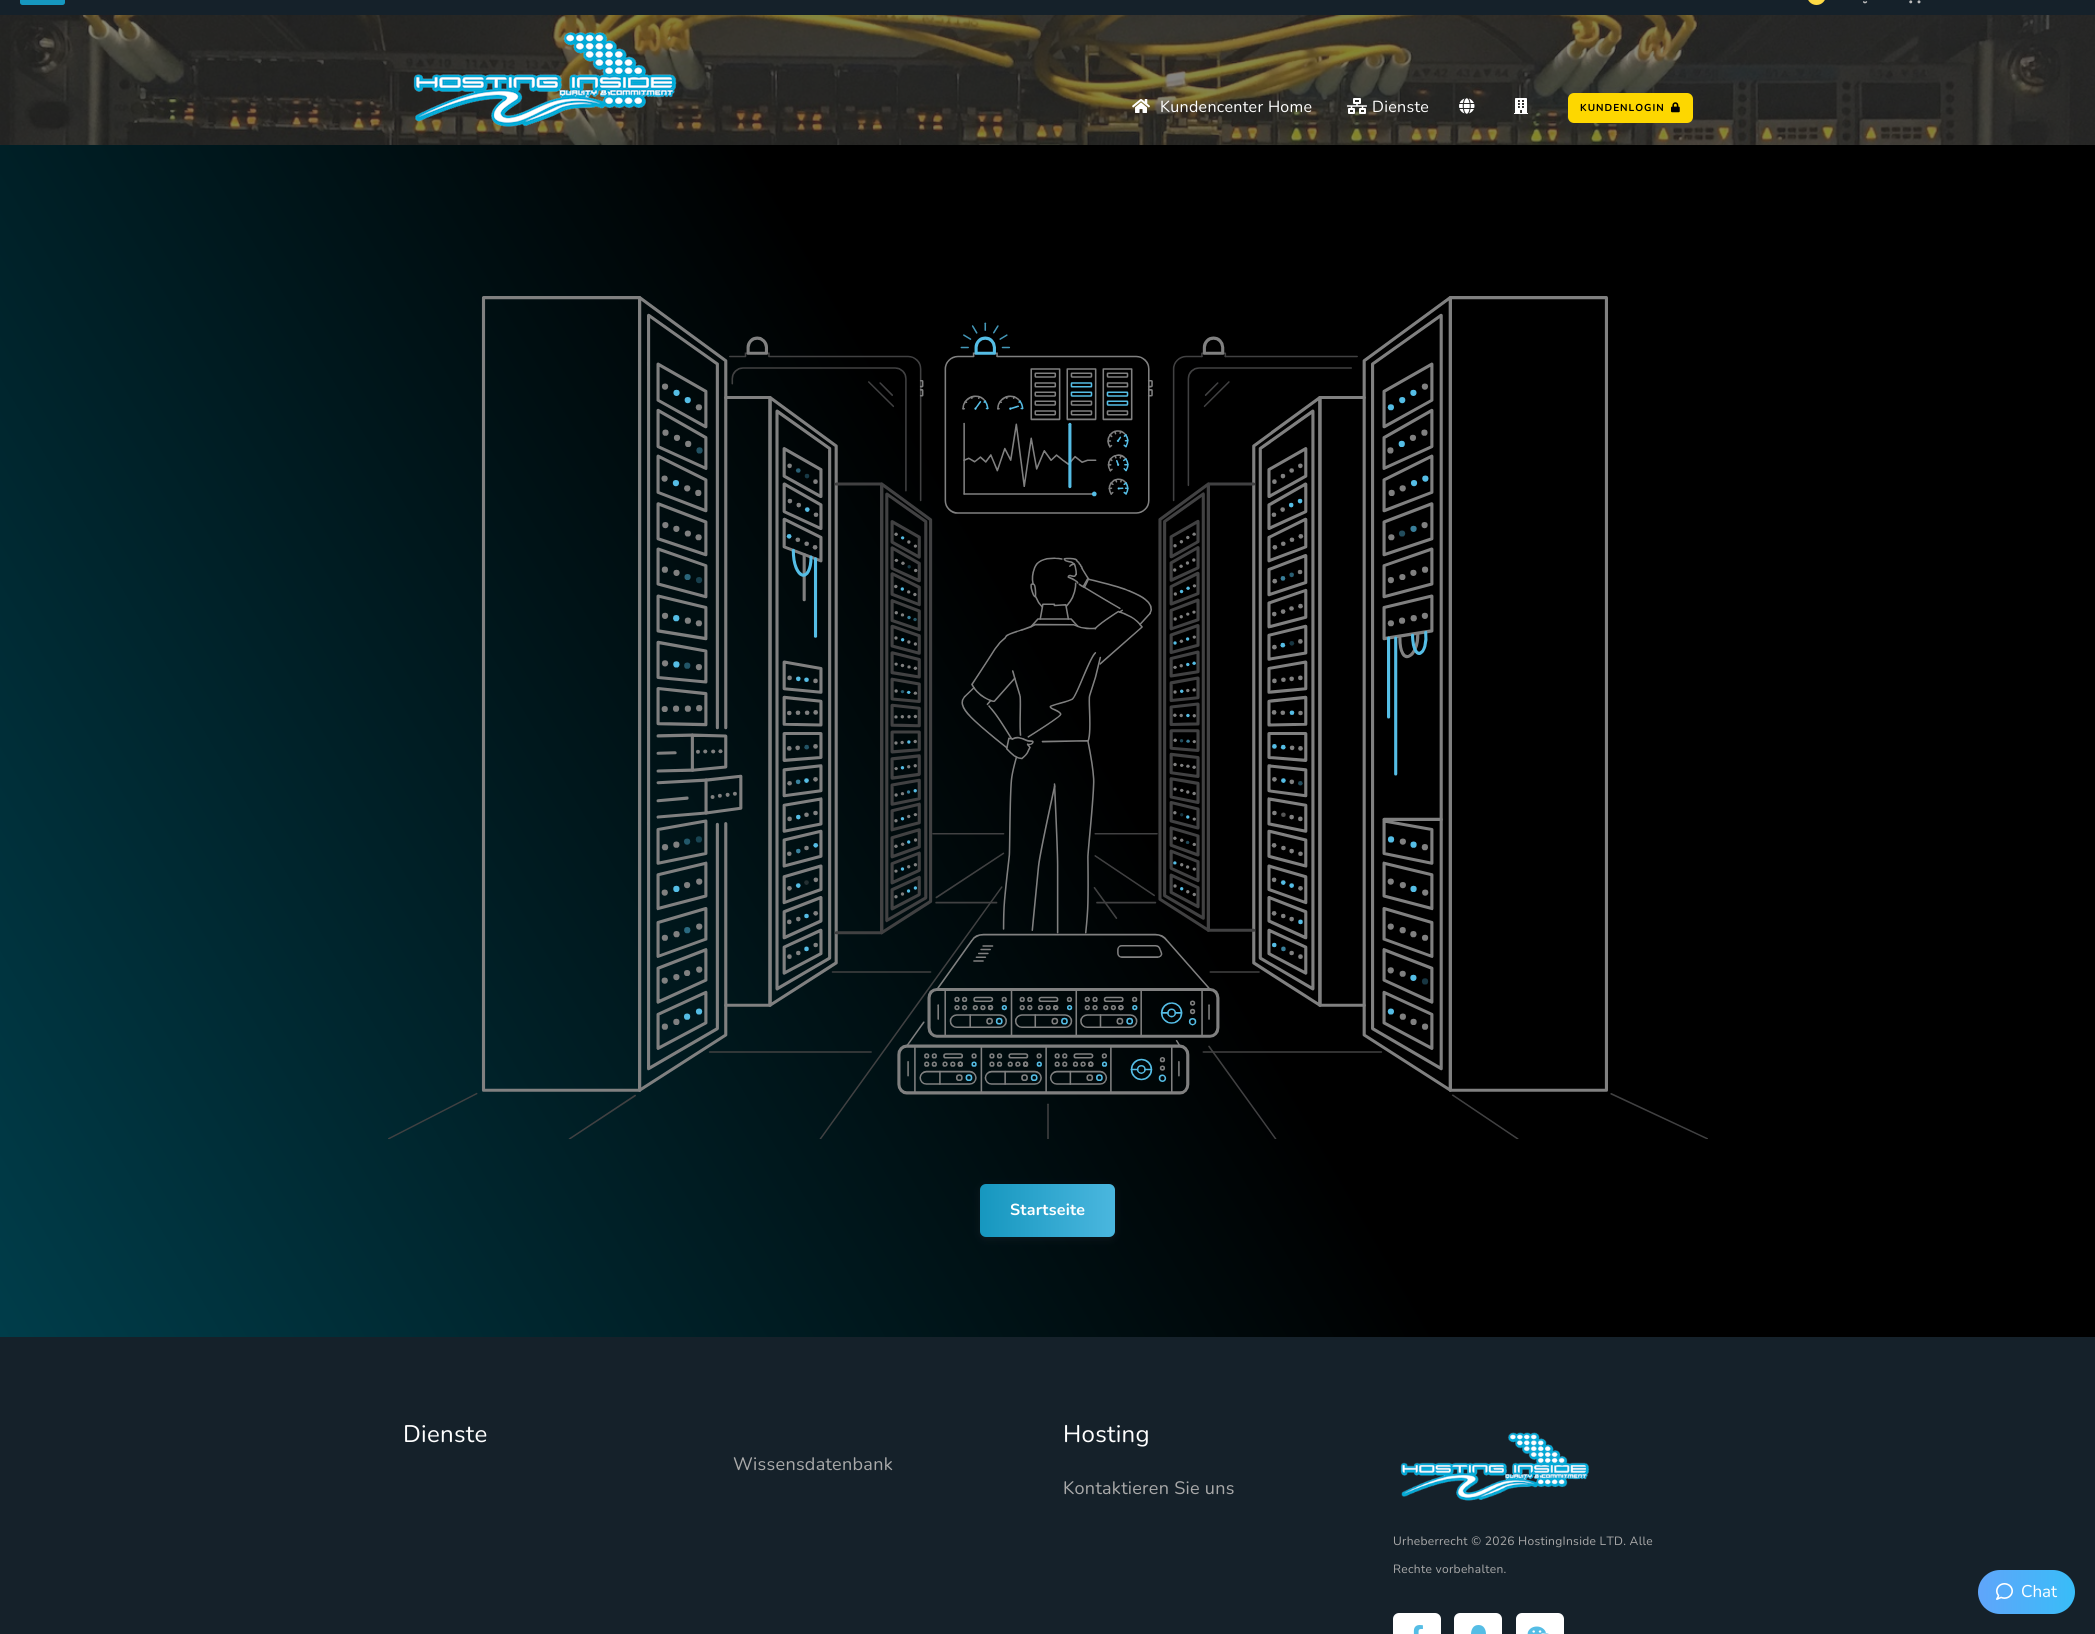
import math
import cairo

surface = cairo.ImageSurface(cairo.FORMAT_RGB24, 2095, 1634)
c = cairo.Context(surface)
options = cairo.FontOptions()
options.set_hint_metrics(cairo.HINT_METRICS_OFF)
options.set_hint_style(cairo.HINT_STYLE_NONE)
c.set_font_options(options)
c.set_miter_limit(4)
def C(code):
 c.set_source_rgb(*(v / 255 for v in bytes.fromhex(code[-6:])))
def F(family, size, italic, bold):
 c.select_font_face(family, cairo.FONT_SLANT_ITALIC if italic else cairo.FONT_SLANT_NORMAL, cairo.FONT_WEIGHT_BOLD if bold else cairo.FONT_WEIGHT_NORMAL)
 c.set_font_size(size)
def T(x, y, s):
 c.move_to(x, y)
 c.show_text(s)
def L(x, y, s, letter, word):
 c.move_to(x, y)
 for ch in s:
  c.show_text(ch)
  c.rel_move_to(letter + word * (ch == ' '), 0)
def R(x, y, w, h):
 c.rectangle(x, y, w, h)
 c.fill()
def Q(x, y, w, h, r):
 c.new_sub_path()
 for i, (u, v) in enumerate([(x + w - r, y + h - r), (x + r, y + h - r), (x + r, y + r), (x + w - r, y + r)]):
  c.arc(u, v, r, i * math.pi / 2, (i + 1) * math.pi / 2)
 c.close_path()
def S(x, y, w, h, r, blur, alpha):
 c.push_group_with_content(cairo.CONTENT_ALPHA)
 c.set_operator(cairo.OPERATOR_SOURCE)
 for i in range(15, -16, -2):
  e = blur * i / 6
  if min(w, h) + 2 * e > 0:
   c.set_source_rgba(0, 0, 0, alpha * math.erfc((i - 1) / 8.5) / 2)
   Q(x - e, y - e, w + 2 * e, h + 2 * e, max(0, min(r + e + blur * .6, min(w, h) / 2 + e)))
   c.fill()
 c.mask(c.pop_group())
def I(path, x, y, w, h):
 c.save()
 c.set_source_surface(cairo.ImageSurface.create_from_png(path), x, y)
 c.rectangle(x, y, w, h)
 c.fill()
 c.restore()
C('15212a')
c.paint()
C('1697bf')
Q(20,-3,45,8,2.5)
c.fill()
c.save()
Q(1807,-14,19,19,9.5)
c.clip()
C('ffda44')
R(1807,0,19,5)
c.restore()
I('1.png',1863,1,5,3)
I('2.png',1909,0,12,4)
I('3.png',0,15,2095,130)
I('4.png',413,32,264,95)
I('5.png',1132,99,18,14)
F('Nunito',16,0,0)
C('ffffff')
L(1160,112,'Kundencenter Home',.3,0)
I('6.png',1347,98,20,16)
L(1372,112,'Dienste',.3,0)
I('7.png',1459,98,16,16)
I('8.png',1514,98,14,16)
C('3e3e4f')
S(1568,95,125,30,6,4,.23)
C('fdd700')
Q(1568,93,125,30,6)
c.fill()
F('Nunito',10,0,1)
C('000000')
L(1580,111,'KUNDENLOGIN',1,0)
I('9.png',1671,102,9,11)
gradient = cairo.LinearGradient(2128,32,-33,1280)
gradient.add_color_stop_rgba(.5,0,0,0,1)
gradient.add_color_stop_rgba(1,0,0.239,0.29,1)
c.set_source(gradient)
R(0,145,2095,1192)
I('10.png',388,296,1320,843)
C('3e3e4f')
S(980,1186,135,53,6,4,.23)
gradient = cairo.LinearGradient(980,1211,1385,1211)
gradient.add_color_stop_rgba(0,0.086,0.592,0.749,1)
gradient.add_color_stop_rgba(.4,0.333,0.741,0.898,1)
gradient.add_color_stop_rgba(1,0.086,0.592,0.749,1)
c.set_source(gradient)
Q(980,1184,135,53,6)
c.fill()
F('Nunito',16,0,1)
C('ffffff')
L(1010,1215,'Startseite',.25,0)
F('Nunito',24,0,0)
L(403,1442,'Dienste',.3,0)
L(1063,1442,'Hosting',.3,0)
F('Nunito',18,0,0)
C('aaaaaa')
L(1063,1494,'Kontaktieren Sie uns',.3,0)
L(733,1470,'Wissensdatenbank',.3,0)
I('11.png',1400,1432,190,69)
F('Nunito',12,0,0)
L(1393,1545,'Urheberrecht © 2026 HostingInside LTD. Alle',.3,0)
L(1393,1573,'Rechte vorbehalten.',.3,0)
C('ffffff')
Q(1393,1613,48,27,6)
c.fill()
I('12.png',1413,1625,10,9)
Q(1454,1613,48,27,6)
c.fill()
I('13.png',1471,1625,15,9)
Q(1516,1613,48,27,6)
c.fill()
I('14.png',1527,1626,22,8)
gradient = cairo.LinearGradient(1978,1592,2075,1592)
gradient.add_color_stop_rgba(0,0.376,0.647,0.98,1)
gradient.add_color_stop_rgba(1,0.22,0.741,0.973,1)
c.set_source(gradient)
Q(1978,1570,97,44,22)
c.fill()
I('15.png',1996,1583,17,17)
F('Nunito',17,0,0)
C('ffffff')
T(2021,1597,'Chat')
surface.write_to_png('o.png')
